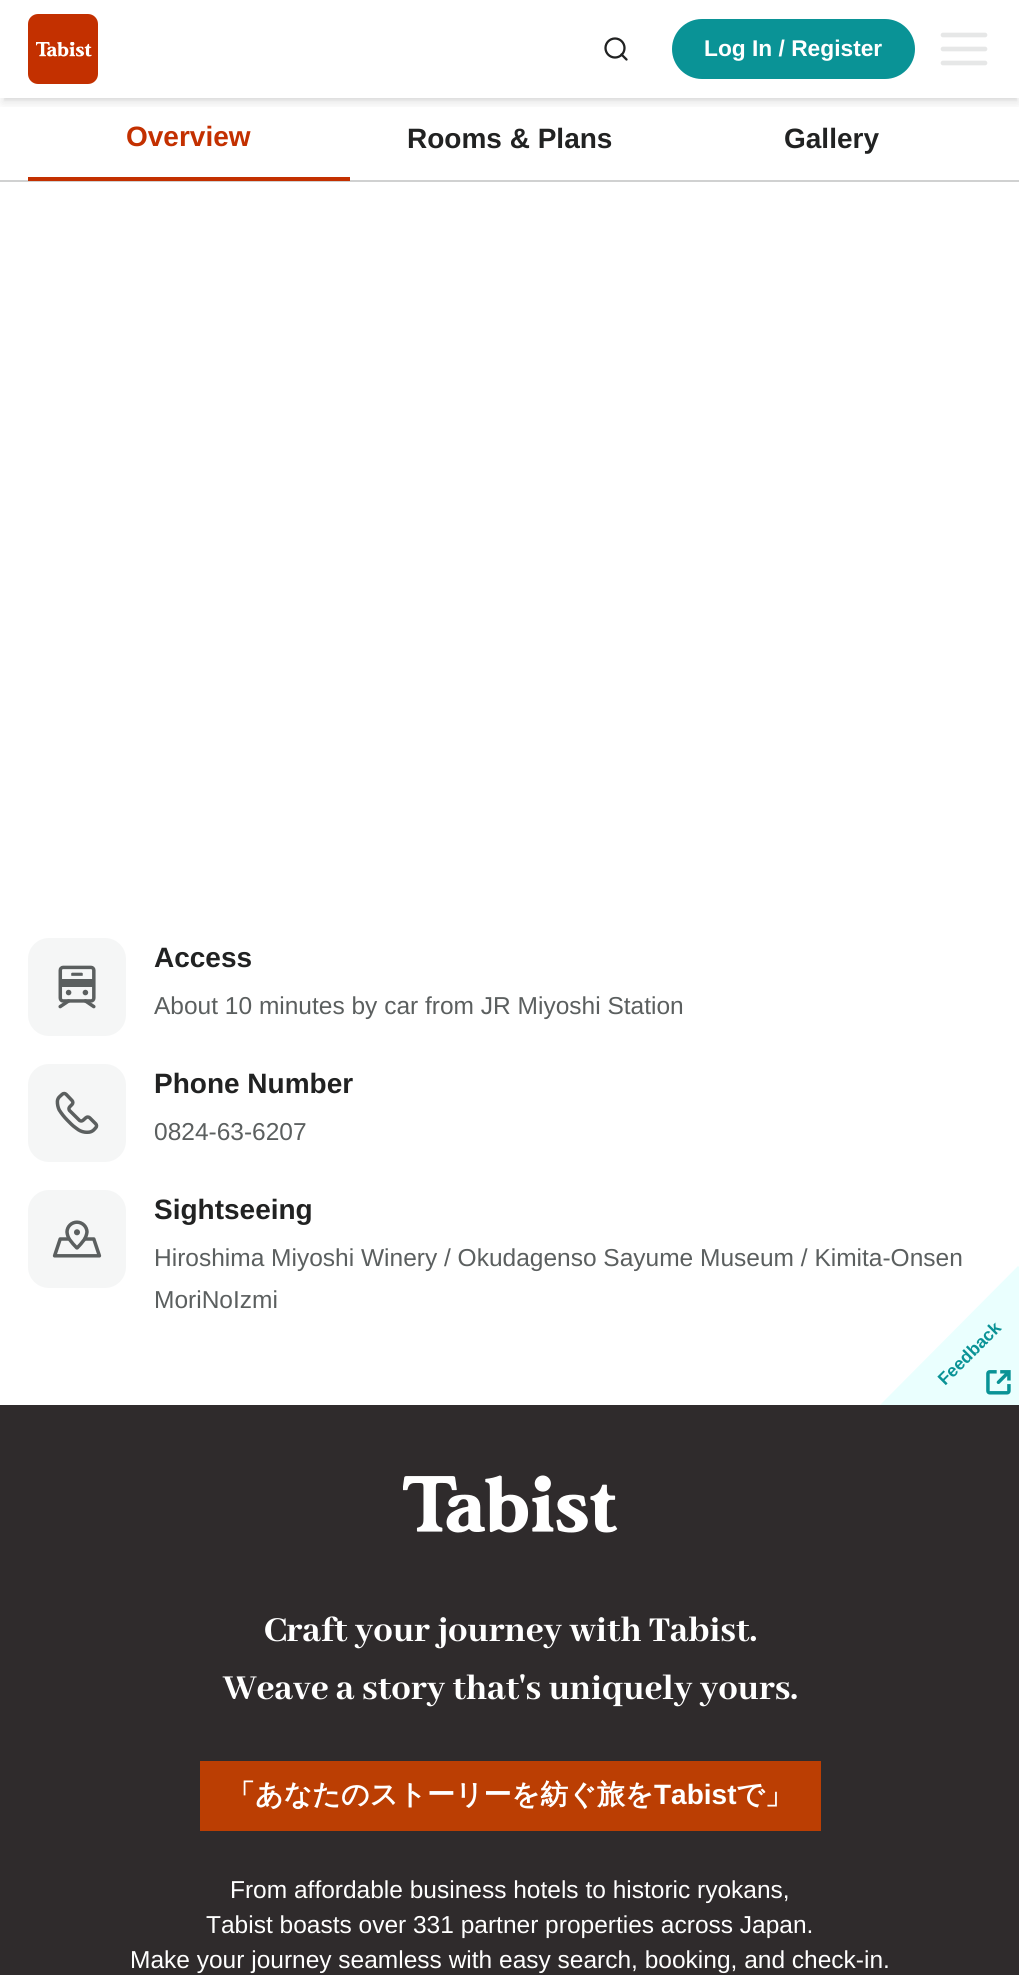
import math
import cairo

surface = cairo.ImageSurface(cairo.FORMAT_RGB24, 1019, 1975)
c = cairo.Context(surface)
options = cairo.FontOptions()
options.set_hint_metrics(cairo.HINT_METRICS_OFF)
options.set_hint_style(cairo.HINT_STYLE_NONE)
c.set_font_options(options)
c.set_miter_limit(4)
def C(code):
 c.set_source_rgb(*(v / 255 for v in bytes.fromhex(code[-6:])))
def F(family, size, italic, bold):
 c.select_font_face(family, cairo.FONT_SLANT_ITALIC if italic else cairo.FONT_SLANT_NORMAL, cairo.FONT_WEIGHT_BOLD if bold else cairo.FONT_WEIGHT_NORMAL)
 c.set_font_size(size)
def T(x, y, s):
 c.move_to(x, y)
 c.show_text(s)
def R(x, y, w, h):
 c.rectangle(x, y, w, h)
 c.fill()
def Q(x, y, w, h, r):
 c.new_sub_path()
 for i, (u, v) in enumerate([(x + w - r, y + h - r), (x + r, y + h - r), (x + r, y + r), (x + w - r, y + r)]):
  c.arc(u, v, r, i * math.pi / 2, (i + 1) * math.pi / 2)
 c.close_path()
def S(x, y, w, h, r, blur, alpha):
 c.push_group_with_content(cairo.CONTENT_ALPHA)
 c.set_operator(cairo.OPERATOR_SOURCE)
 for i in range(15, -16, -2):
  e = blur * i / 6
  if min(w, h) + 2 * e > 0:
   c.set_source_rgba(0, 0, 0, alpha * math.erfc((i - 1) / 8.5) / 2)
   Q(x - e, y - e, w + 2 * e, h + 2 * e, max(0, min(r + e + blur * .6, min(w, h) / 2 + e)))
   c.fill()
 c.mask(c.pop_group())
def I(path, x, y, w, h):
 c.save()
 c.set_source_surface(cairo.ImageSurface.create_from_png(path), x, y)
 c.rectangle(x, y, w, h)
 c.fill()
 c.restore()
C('ffffff')
c.paint()
c.save()
c.rectangle(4,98,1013,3)
c.clip()
C('000000')
S(4,7,1013,91,0,3.5,.1)
c.restore()
c.save()
c.rectangle(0,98,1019,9)
c.clip()
C('000000')
S(2,9,1017,94,0,5,.1)
c.restore()
I('1.png',28,14,70,70)
c.arc(615,48,9.5,0,2 * math.pi)
C('212222')
c.set_line_width(2.3)
c.stroke()
c.new_path()
c.move_to(626.5,59.5)
c.line_to(621.5,54.5)
c.set_line_cap(cairo.LINE_CAP_ROUND)
c.set_line_join(cairo.LINE_JOIN_ROUND)
c.stroke()
C('0a9396')
Q(672,19,243,60,30)
c.fill()
F('Liberation Sans',22.75,0,1)
C('ffffff')
T(704,56,'Log In / Register')
c.new_path()
c.move_to(943,49)
c.line_to(985,49)
c.move_to(943,35)
c.line_to(985,35)
c.move_to(943,63)
c.line_to(985,63)
C('e6e7e7')
c.set_line_width(4.7)
c.stroke()
C('d0d1d1')
R(0,180,1019,2)
C('c33000')
R(28,177,322,4)
F('Liberation Sans',28,0,1)
T(126,146,'Overview')
C('212222')
T(407,148,'Rooms & Plans')
T(784,148,'Gallery')
C('f5f6f6')
Q(28,938,98,98,21)
c.fill()
I('2.png',58,965,38,44)
C('212222')
T(154,967,'Access')
F('Liberation Sans',24.5,0,0)
C('5b5f5f')
T(154,1014,'About 10 minutes by car from JR Miyoshi Station')
C('f5f6f6')
Q(28,1064,98,98,21)
c.fill()
I('3.png',55,1091,44,43)
F('Liberation Sans',28,0,1)
C('212222')
T(154,1093,'Phone Number')
F('Liberation Sans',24.5,0,0)
C('5b5f5f')
T(154,1140,'0824-63-6207')
C('f5f6f6')
Q(28,1190,98,98,21)
c.fill()
I('4.png',52,1220,50,38)
F('Liberation Sans',28,0,1)
C('212222')
T(154,1219,'Sightseeing')
F('Liberation Sans',24.5,0,0)
C('5b5f5f')
T(154,1266,'Hiroshima Miyoshi Winery / Okudagenso Sayume Museum / Kimita-Onsen')
T(154,1308,'MoriNoIzmi')
C('eafffe')
c.new_path()
c.move_to(880,1405)
c.line_to(1018,1266)
c.line_to(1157,1405)
c.line_to(1019,1543)
c.close_path()
c.fill()
F('Liberation Sans',17.5,0,1)
C('0a9396')
c.save()
c.translate(945,1386)
c.rotate(-45 * math.pi / 180)
T(0,0,'Feedback')
c.restore()
I('5.png',986,1370,25,25)
C('2f2b2c')
R(0,1405,1019,570)
I('6.png',403,1475,215,58)
F('Abhaya Libre ExtraBold ExtraBold',38.5,0,0)
C('ffffff')
T(264,1641,'Craft your journey with Tabist.')
T(223,1699,'Weave a story that\'s uniquely yours.')
C('bb3e03')
R(200,1761,621,70)
F('WenQuanYi Zen Hei',28,0,1)
C('ffffff')
T(227,1804,'「あなたのストーリーを紡ぐ旅を')
F('Liberation Sans',28,0,1)
T(654,1804,'Tabist')
F('WenQuanYi Zen Hei',28,0,1)
T(736,1804,'で」')
F('Liberation Sans',24.5,0,0)
T(230,1898,'From affordable business hotels to historic ryokans,')
T(206,1933,'Tabist boasts over 331 partner properties across Japan.')
T(130,1968,'Make your journey seamless with easy search, booking, and check-in.')
surface.write_to_png('o.png')
